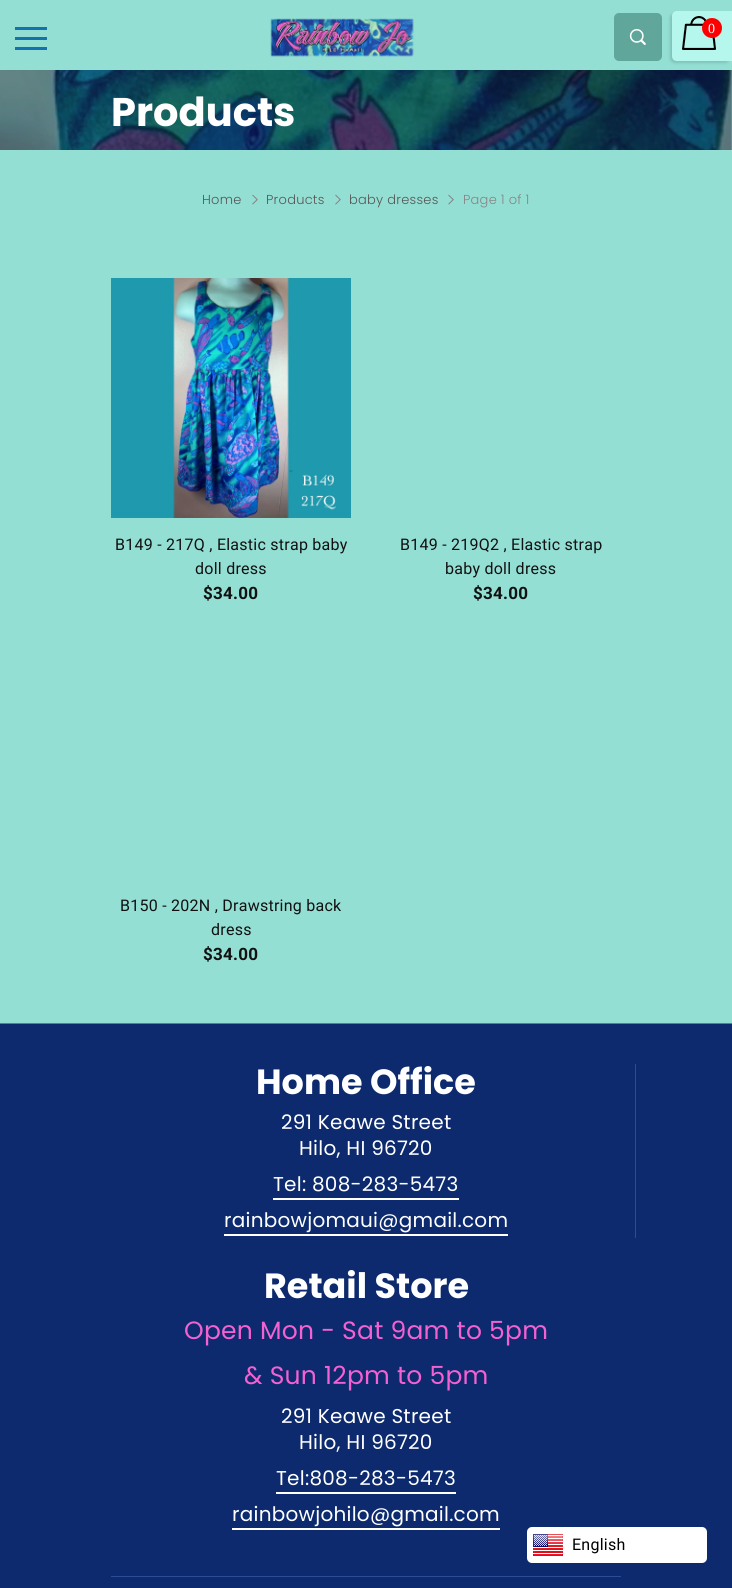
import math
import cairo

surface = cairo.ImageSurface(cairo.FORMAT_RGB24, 732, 1588)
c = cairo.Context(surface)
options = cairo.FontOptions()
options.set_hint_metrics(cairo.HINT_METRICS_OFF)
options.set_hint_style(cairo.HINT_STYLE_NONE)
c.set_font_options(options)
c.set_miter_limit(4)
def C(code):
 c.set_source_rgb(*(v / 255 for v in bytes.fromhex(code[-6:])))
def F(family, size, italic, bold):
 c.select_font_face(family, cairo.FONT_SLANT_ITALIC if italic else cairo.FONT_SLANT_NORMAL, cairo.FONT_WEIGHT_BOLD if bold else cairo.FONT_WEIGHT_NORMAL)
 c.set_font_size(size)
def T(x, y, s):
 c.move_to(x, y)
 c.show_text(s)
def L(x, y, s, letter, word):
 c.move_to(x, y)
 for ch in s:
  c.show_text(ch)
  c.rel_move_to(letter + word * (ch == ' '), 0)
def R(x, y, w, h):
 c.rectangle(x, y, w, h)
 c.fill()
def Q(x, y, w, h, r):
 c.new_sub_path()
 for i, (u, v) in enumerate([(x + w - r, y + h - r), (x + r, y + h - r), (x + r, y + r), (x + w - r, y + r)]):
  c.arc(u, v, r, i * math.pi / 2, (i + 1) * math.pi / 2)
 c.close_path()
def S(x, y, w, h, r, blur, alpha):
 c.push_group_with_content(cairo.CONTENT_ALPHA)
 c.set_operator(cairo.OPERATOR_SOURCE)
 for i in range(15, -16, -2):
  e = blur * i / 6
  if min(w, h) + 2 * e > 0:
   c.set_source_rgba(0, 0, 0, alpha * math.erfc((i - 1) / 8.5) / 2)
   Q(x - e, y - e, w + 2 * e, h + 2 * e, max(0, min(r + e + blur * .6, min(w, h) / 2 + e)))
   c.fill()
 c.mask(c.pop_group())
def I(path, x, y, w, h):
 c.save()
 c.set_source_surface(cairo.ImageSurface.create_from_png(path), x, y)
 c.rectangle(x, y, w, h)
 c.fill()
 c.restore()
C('94dfd4')
c.paint()
C('1672ac')
R(15,27,32,3)
R(15,37,32,3)
R(15,47,32,3)
I('1.png',270,14,147,44)
C('60a69b')
Q(614,13,48,48,5)
c.fill()
I('2.png',629,29,17,16)
C('0f1115')
S(670,13,60,50,5,1.5,.15)
C('b5f7ed')
c.new_path()
c.move_to(677,11)
c.line_to(732,11)
c.line_to(732,61)
c.line_to(677,61)
c.curve_to(674,61,672,59,672,56)
c.line_to(672,16)
c.curve_to(672,13,674,11,677,11)
c.close_path()
c.fill()
I('3.png',682,16,34,34)
C('ff0000')
c.arc(712,28,10,0,2 * math.pi)
c.fill()
F('Liberation Serif',14,0,0)
C('ffffff')
L(708,33,'0',.25,0)
I('4.png',0,70,732,80)
F('Poppins',40,0,1)
T(111,126,'Products')
F('Poppins Light',13,0,0)
C('595555')
L(202,204,'Home',.25,0)
I('5.png',252,194,6,11)
L(266,204,'Products',.25,0)
I('5.png',335,194,6,11)
L(349,204,'baby dresses',.25,0)
I('5.png',448,194,6,11)
C('888484')
L(463,204,'Page 1 of 1',.25,0)
I('6.png',111,278,240,240)
F('Roboto',16,0,0)
C('111111')
L(115,550,'B149 - 217Q , Elastic strap baby',.25,0)
L(195,574,'doll dress',.25,0)
F('Roboto',17,0,1)
L(203,599,'$34.00',.25,0)
F('Roboto',16,0,0)
L(400,550,'B149 - 219Q2 , Elastic strap',.25,0)
L(445,574,'baby doll dress',.25,0)
F('Roboto',17,0,1)
L(473,599,'$34.00',.25,0)
F('Roboto',16,0,0)
L(120,911,'B150 - 202N , Drawstring back',.25,0)
L(211,935,'dress',.25,0)
F('Roboto',17,0,1)
L(203,960,'$34.00',.25,0)
C('0c2a6d')
R(0,1024,732,564)
C('a26358')
R(0,1023,732,1)
F('Poppins',35,0,1)
C('ffffff')
T(256,1094,'Home Office')
F('Poppins',20,0,0)
L(281,1129,'291 Keawe Street',.25,0)
L(299,1155,'Hilo, HI 96720',.25,0)
L(273,1191,'Tel: 808-283-5473',.25,0)
R(273,1198,186,2)
L(224,1227,'rainbowjomaui@gmail.com',.25,0)
R(224,1234,284,2)
C('2c4d95')
R(635,1064,1,174)
F('Poppins',35,0,1)
C('ffffff')
T(264,1298,'Retail Store')
F('Poppins',25,0,0)
C('f461d1')
L(184,1339,'Open Mon - Sat 9am to 5pm',.25,0)
L(244,1384,'& Sun 12pm to 5pm',.25,0)
F('Poppins',20,0,0)
C('ffffff')
L(281,1423,'291 Keawe Street',.25,0)
L(299,1449,'Hilo, HI 96720',.25,0)
L(276,1485,'Tel:808-283-5473',.25,0)
R(276,1492,180,2)
L(232,1521,'rainbowjohilo@gmail.com',.25,0)
R(232,1528,268,2)
C('2c4d95')
R(111,1576,510,1)
C('ffffff')
Q(527,1527,180,36,5)
c.fill()
I('7.png',533,1534,30,22)
F('Roboto',16,0,0)
C('000000')
L(572,1550,'English',.25,0)
surface.write_to_png('o.png')
